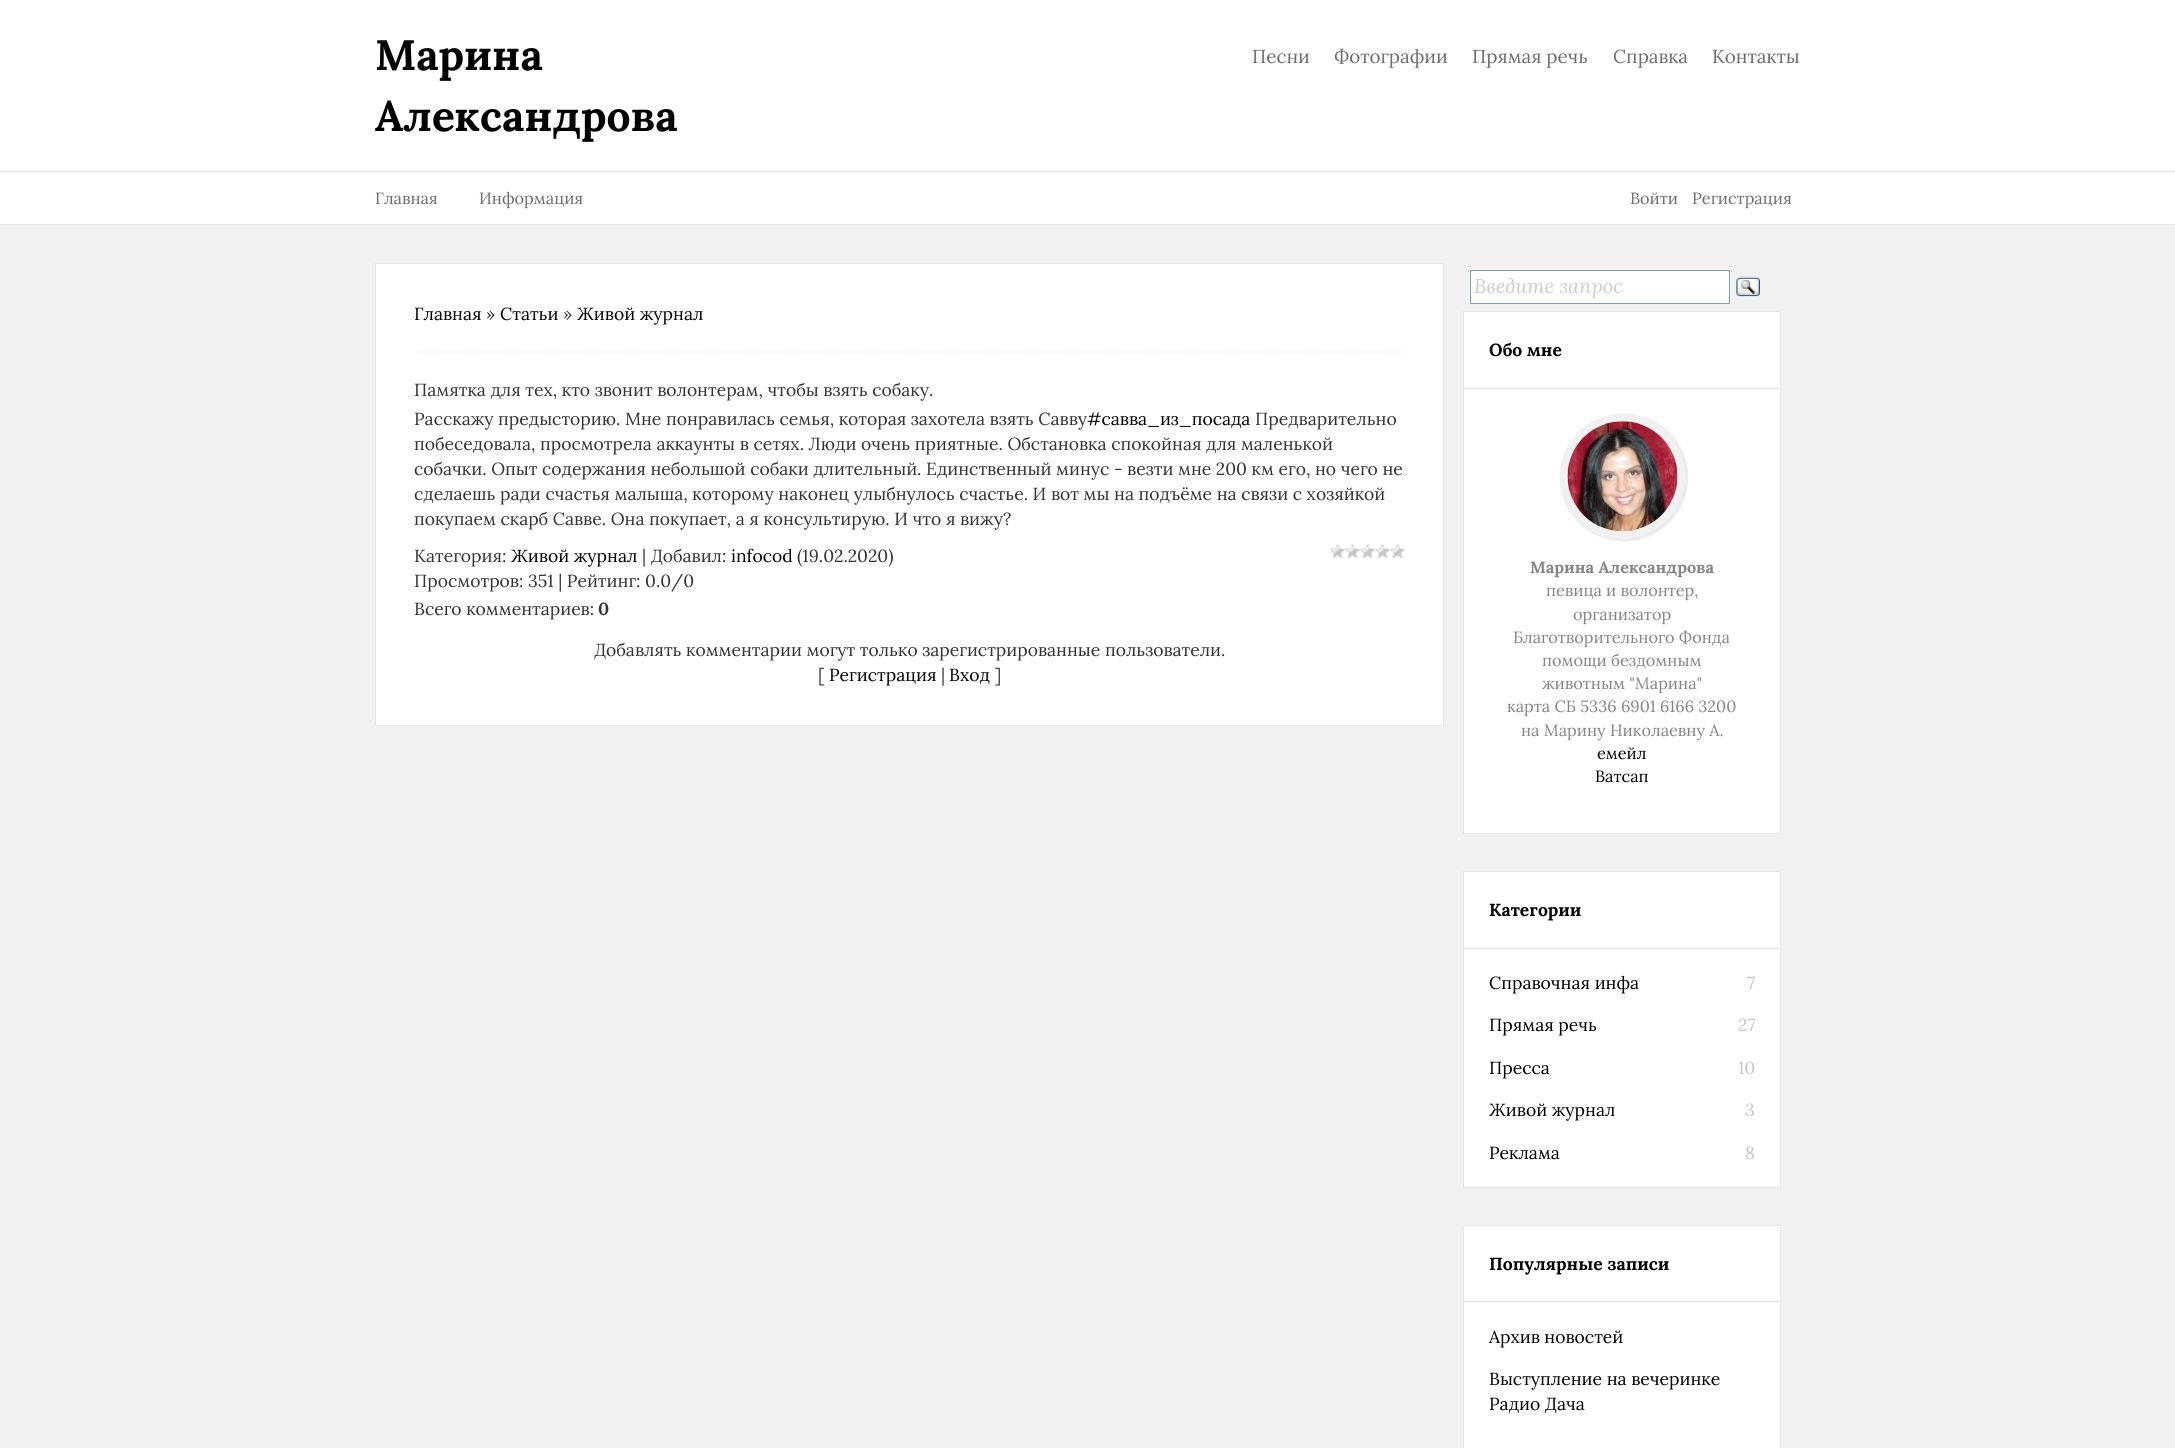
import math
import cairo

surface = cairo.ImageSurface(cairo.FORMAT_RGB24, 2175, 1448)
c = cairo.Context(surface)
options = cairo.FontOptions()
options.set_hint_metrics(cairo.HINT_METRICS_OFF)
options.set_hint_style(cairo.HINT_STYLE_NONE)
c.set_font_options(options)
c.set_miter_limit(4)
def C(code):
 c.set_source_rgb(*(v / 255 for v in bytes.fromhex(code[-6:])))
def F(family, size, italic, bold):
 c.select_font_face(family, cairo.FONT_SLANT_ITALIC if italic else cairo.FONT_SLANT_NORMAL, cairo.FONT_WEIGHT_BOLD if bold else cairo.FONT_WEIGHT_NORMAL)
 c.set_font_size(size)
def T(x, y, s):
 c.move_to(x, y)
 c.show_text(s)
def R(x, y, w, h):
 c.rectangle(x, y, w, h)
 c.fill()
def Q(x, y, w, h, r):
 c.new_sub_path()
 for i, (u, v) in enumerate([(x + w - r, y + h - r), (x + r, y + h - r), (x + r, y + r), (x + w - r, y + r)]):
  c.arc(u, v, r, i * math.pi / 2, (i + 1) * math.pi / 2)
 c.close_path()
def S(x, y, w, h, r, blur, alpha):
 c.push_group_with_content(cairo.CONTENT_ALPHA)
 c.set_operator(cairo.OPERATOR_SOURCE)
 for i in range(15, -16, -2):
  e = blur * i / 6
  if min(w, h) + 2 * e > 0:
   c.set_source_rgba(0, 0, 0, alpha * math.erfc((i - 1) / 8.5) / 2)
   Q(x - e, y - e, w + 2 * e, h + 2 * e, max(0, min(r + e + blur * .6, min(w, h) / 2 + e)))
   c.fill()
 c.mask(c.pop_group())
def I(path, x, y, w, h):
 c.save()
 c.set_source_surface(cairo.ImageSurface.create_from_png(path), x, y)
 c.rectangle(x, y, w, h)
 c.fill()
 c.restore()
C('f1f1f1')
c.paint()
C('ffffff')
R(0,0,2175,171)
F('Lora',42.5,0,1)
C('000000')
T(375,70,'Марина')
T(375,131,'Александрова')
F('Lora',18.75,0,0)
C('6d6d6d')
T(1252,63,'Песни')
T(1334,63,'Фотографии')
T(1472,63,'Прямая речь')
T(1613,63,'Справка')
T(1712,63,'Контакты')
C('ffffff')
R(0,172,2175,52)
C('e6e6e6')
R(0,171,2175,1)
R(0,224,2175,1)
F('Lora',16.25,0,0)
C('6d6d6d')
T(375,204,'Главная')
T(479,204,'Информация')
T(1630,204,'Войти')
T(1692,204,'Регистрация')
C('ffffff')
c.rectangle(375.5,263.5,1068,462)
c.fill_preserve()
C('e6e6e6')
c.set_line_width(1)
c.stroke()
F('Lora',17.5,0,0)
C('000000')
T(414,320,'Главная')
C('333333')
T(486,320,'»')
C('000000')
T(500,320,'Статьи')
C('333333')
T(563,320,'»')
C('000000')
T(577,320,'Живой журнал')
c.new_path()
c.move_to(414,352)
c.line_to(1405,352)
C('eeeeee')
c.set_line_width(1.2)
c.set_dash([1.25,1.25])
c.stroke()
C('333333')
T(414,396,'Памятка для тех, кто звонит волонтерам, чтобы взять собаку.')
T(414,425,'Расскажу предысторию. Мне понравилась семья, которая захотела взять Савву')
C('000000')
T(1087,425,'#савва_из_посада')
C('333333')
T(1255,425,'Предварительно')
T(414,450,'побеседовала, просмотрела аккаунты в сетях. Люди очень приятные. Обстановка спокойная для маленькой')
T(414,475,'собачки. Опыт содержания небольшой собаки длительный. Единственный минус - везти мне 200 км его, но чего не')
T(414,500,'сделаешь ради счастья малыша, которому наконец улыбнулось счастье. И вот мы на подъёме на связи с хозяйкой')
T(414,525,'покупаем скарб Савве. Она покупает, а я консультирую. И что я вижу?')
T(414,562,'Категория:')
C('000000')
T(511,562,'Живой журнал')
C('333333')
T(642,562,'| Добавил:')
C('000000')
T(731,562,'infocod')
C('333333')
T(797,562,'(19.02.2020)')
I('1.png',1330,544,75,15)
T(414,587,'Просмотров: 351 | Рейтинг: 0.0/0')
T(414,615,'Всего комментариев:')
F('Lora',17.5,0,1)
T(598,615,'0')
F('Lora',17.5,0,0)
T(594,656,'Добавлять комментарии могут только зарегистрированные пользователи.')
T(818,681,'[')
C('000000')
T(829,681,'Регистрация')
C('333333')
T(941,681,'|')
C('000000')
T(949,681,'Вход')
C('333333')
T(995,681,']')
C('ffffff')
c.rectangle(1470.5,270.5,259,33)
c.fill_preserve()
C('7f9db9')
c.set_line_width(1)
c.set_dash([])
c.stroke()
F('Lora',20,1,0)
C('cccccc')
T(1474,293,'Введите запрос')
I('2.png',1736,277,24,20)
C('ffffff')
c.rectangle(1463.5,311.5,317,522)
c.fill_preserve()
C('e6e6e6')
c.stroke()
R(1464,388,316,1)
F('Lora',17.5,0,1)
C('000000')
T(1489,356,'Обо мне')
C('ebebeb')
S(1560,414,128,127,63.5,.5,1)
c.arc(1622.5,476.5,58.5,0,2 * math.pi)
C('f1f1f1')
c.set_line_width(8)
c.stroke()
I('3.png',1567,421,111,111)
F('Lora',16.25,0,1)
C('858585')
T(1530,573,'Марина Александрова')
F('Lora',16.25,0,0)
T(1546,596,'певица и волонтер,')
T(1573,620,'организатор')
T(1513,643,'Благотворительного Фонда')
T(1542,666,'помощи бездомным')
T(1542,689,'животным "Марина"')
T(1507,712,'карта СБ 5336 6901 6166 3200')
T(1521,736,'на Марину Николаевну А.')
C('000000')
T(1597,759,'емейл')
T(1595,782,'Ватсап')
C('ffffff')
c.rectangle(1463.5,871.5,317,316)
c.fill_preserve()
C('e6e6e6')
c.set_line_width(1)
c.stroke()
R(1464,948,316,1)
F('Lora',17.5,0,1)
C('000000')
T(1489,916,'Категории')
F('Lora',17.5,0,0)
T(1489,989,'Справочная инфа')
C('c5c5c5')
T(1747,989,'7')
C('000000')
T(1489,1031,'Прямая речь')
C('c5c5c5')
T(1738,1031,'27')
C('000000')
T(1489,1074,'Пресса')
C('c5c5c5')
T(1738,1074,'10')
C('000000')
T(1489,1116,'Живой журнал')
C('c5c5c5')
T(1745,1116,'3')
C('000000')
T(1489,1159,'Реклама')
C('c5c5c5')
T(1745,1159,'8')
C('ffffff')
c.rectangle(1463.5,1225.5,317,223)
c.fill_preserve()
C('e6e6e6')
c.stroke()
R(1464,1301,316,1)
F('Lora',17.5,0,1)
C('000000')
T(1489,1270,'Популярные записи')
F('Lora',17.5,0,0)
T(1489,1343,'Архив новостей')
T(1489,1385,'Выступление на вечеринке')
T(1489,1410,'Радио Дача')
surface.write_to_png('o.png')
